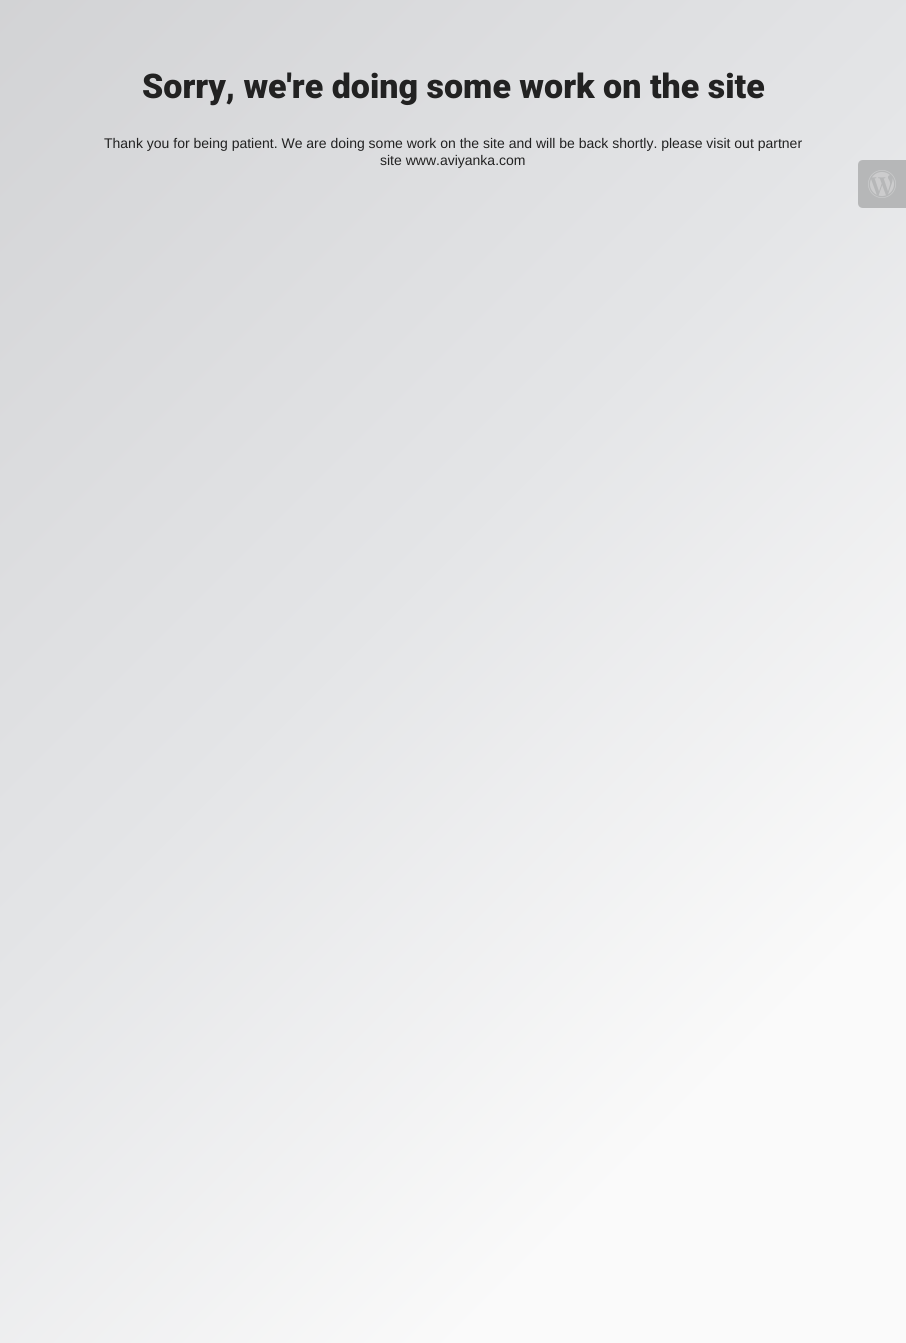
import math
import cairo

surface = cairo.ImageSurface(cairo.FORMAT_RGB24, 906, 1343)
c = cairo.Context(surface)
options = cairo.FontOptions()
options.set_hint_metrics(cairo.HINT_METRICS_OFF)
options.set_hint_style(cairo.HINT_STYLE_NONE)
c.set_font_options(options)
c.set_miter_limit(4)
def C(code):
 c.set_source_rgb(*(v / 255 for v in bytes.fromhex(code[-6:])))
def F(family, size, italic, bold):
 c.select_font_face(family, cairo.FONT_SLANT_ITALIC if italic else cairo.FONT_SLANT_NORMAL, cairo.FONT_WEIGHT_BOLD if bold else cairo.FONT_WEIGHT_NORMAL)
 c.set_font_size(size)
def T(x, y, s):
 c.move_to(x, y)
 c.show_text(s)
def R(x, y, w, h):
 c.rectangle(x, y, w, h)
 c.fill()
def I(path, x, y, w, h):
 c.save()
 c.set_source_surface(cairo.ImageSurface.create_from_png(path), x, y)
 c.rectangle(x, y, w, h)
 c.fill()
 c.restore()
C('ffffff')
c.paint()
gradient = cairo.LinearGradient(-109,109,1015,1234)
gradient.add_color_stop_rgba(0,0.824,0.827,0.835,1)
gradient.add_color_stop_rgba(.44,0.894,0.898,0.906,1)
gradient.add_color_stop_rgba(.8,0.98,0.98,0.98,1)
c.set_source(gradient)
R(0,0,906,1343)
F('Roboto Black',34,0,0)
C('222222')
T(142,98,'Sorry, we\'re doing some work on the site')
F('Liberation Sans',14,0,0)
T(104,148,'Thank you for being patient. We are doing some work on the site and will be back shortly. please visit out partner')
T(380,165,'site www.aviyanka.com')
C('b6b7b8')
c.new_path()
c.move_to(863,160)
c.line_to(906,160)
c.line_to(906,208)
c.line_to(863,208)
c.curve_to(860,208,858,206,858,203)
c.line_to(858,165)
c.curve_to(858,162,860,160,863,160)
c.close_path()
c.fill()
I('1.png',868,170,28,28)
surface.write_to_png('o.png')
